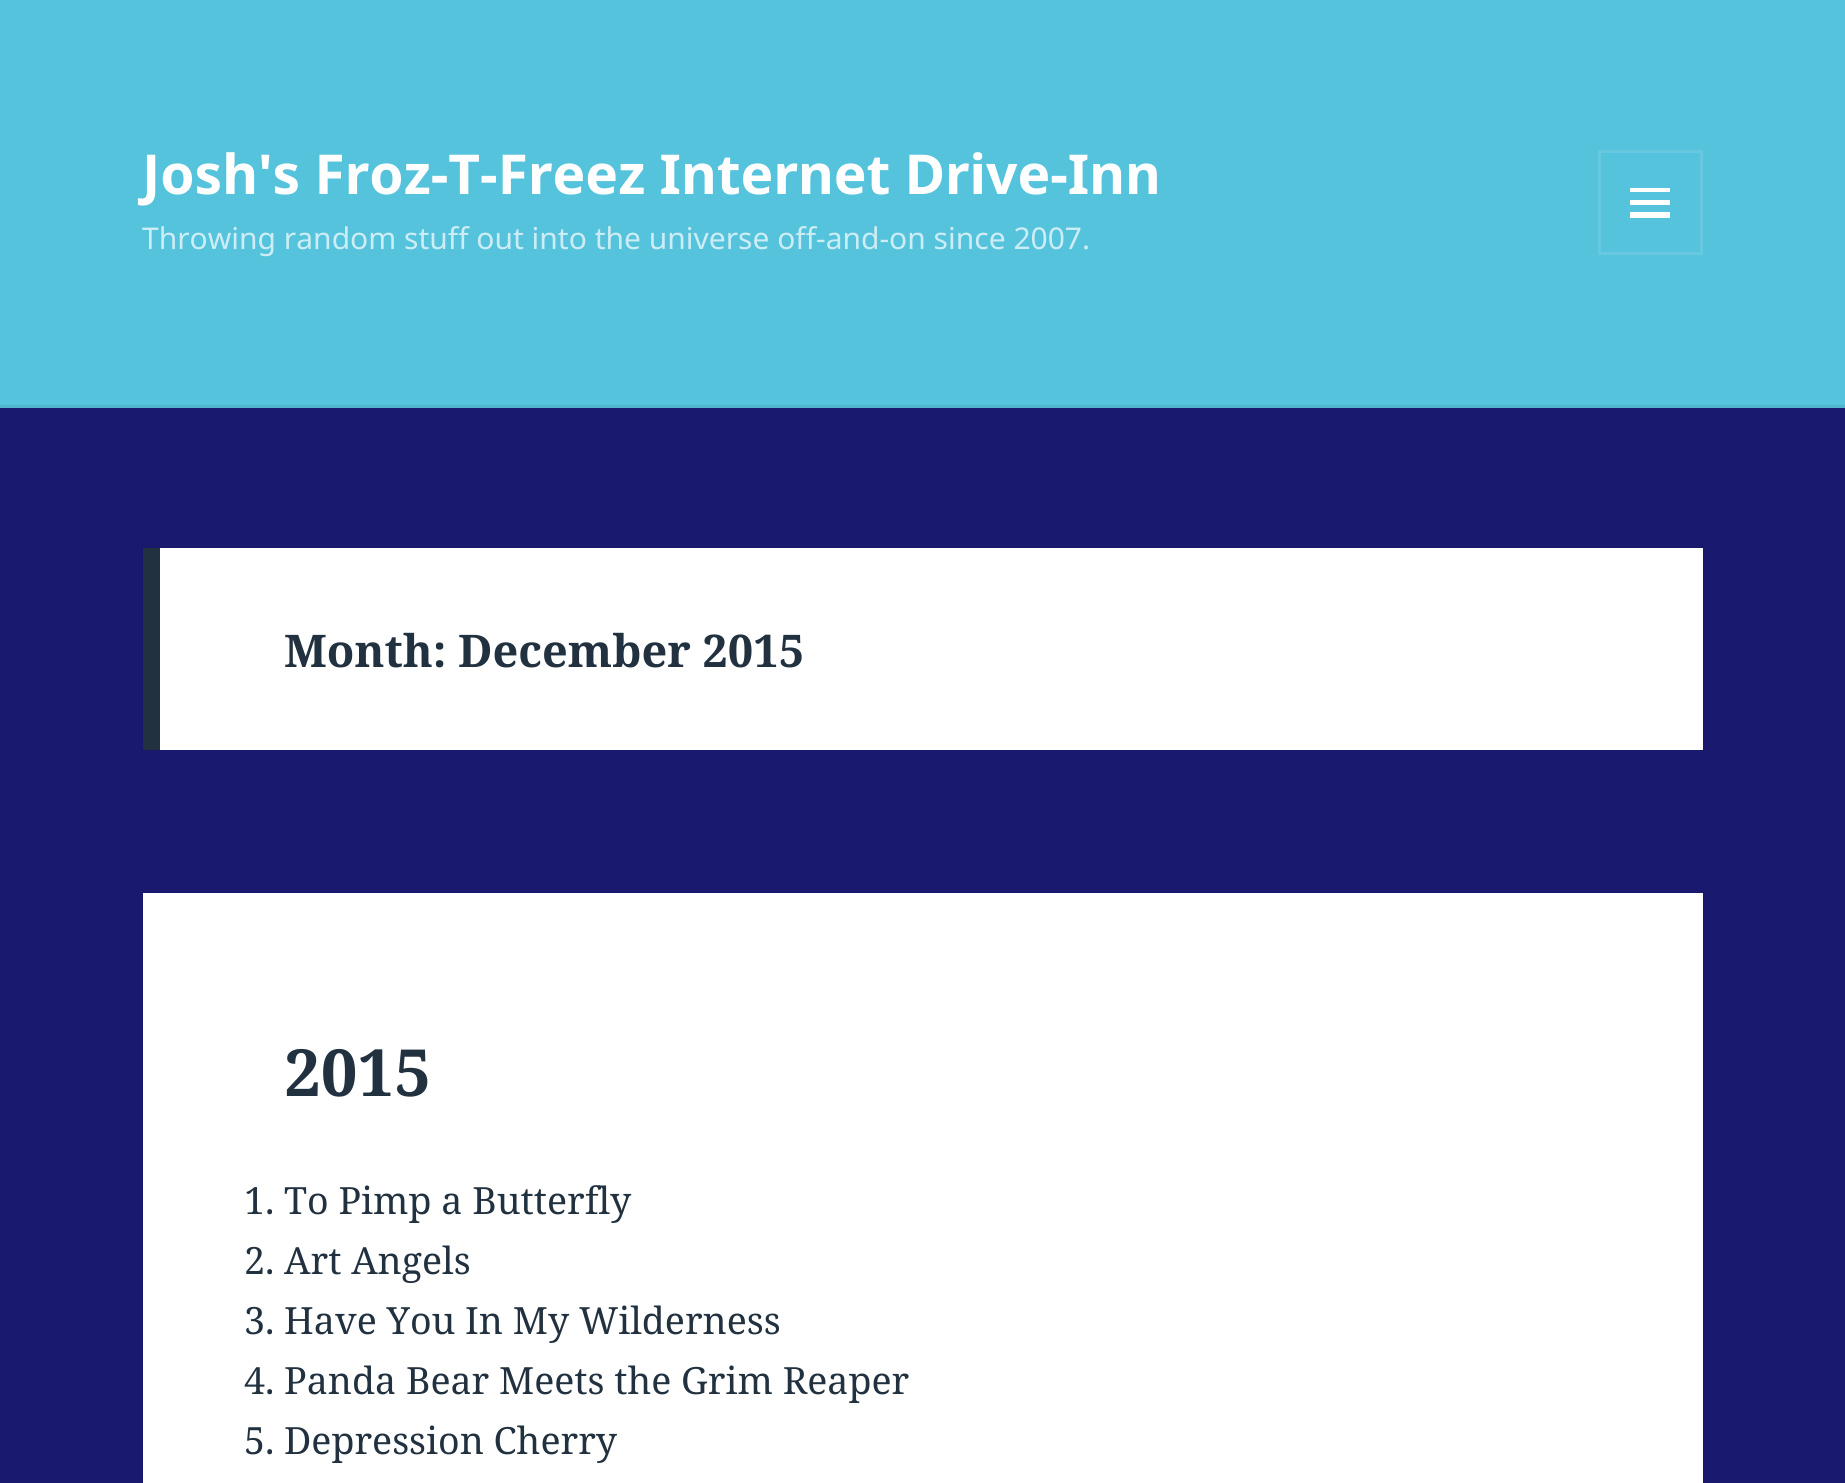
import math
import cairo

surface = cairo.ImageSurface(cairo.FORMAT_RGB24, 1845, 1483)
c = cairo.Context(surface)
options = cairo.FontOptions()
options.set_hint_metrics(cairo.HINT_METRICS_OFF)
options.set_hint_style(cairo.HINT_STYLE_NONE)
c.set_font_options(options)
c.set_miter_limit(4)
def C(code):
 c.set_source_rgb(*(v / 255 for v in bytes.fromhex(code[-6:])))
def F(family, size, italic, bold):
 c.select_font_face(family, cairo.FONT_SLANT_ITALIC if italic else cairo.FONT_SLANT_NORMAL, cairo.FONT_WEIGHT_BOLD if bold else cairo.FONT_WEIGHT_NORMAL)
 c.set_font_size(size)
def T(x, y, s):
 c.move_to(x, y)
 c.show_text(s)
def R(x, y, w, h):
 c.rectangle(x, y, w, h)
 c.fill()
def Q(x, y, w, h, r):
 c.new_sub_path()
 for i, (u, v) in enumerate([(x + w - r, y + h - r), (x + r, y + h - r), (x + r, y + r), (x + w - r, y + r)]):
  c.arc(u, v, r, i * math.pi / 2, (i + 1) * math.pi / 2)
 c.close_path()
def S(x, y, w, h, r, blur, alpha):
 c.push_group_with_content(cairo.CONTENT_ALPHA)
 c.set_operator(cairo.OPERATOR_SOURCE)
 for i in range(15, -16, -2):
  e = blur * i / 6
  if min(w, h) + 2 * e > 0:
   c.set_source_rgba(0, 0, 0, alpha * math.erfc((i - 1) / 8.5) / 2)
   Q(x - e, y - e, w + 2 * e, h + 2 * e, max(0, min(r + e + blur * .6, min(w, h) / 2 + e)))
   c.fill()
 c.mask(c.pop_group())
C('191970')
c.paint()
C('55c3dc')
R(0,0,1845,405)
C('50b4cc')
R(0,405,1845,3)
F('Noto Sans',55,0,1)
C('ffffff')
T(142,194,'Josh\'s Froz-T-Freez Internet Drive-Inn')
c.rectangle(1599.5,151.5,102,102)
C('66c9e0')
c.set_line_width(3)
c.stroke()
C('ffffff')
c.new_path()
c.move_to(1630,218)
c.line_to(1630,212)
c.line_to(1670,212)
c.line_to(1670,218)
c.close_path()
c.move_to(1630,188)
c.line_to(1670,188)
c.line_to(1670,192)
c.line_to(1630,192)
c.close_path()
c.move_to(1630,205)
c.line_to(1630,200)
c.line_to(1670,200)
c.line_to(1670,205)
c.close_path()
c.fill()
F('Noto Sans',30,0,0)
C('ccedf5')
T(142,249,'Throwing random stuff out into the universe off-and-on since 2007.')
C('000000')
S(143,548,1560,202,0,1,.15)
C('ffffff')
R(160,548,1543,202)
C('22313f')
R(143,548,17,202)
F('Noto Serif',45,0,1)
T(284,667,'Month: December 2015')
C('000000')
S(143,893,1560,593,0,1,.15)
C('ffffff')
R(143,893,1560,590)
F('Noto Serif',65,0,1)
C('22313f')
T(284,1096,'2015')
F('Noto Serif',37.5,0,0)
T(244,1214,'1. To Pimp a Butterfly')
T(244,1274,'2. Art Angels')
T(244,1334,'3. Have You In My Wilderness')
T(244,1394,'4. Panda Bear Meets the Grim Reaper')
T(244,1454,'5. Depression Cherry')
surface.write_to_png('o.png')
